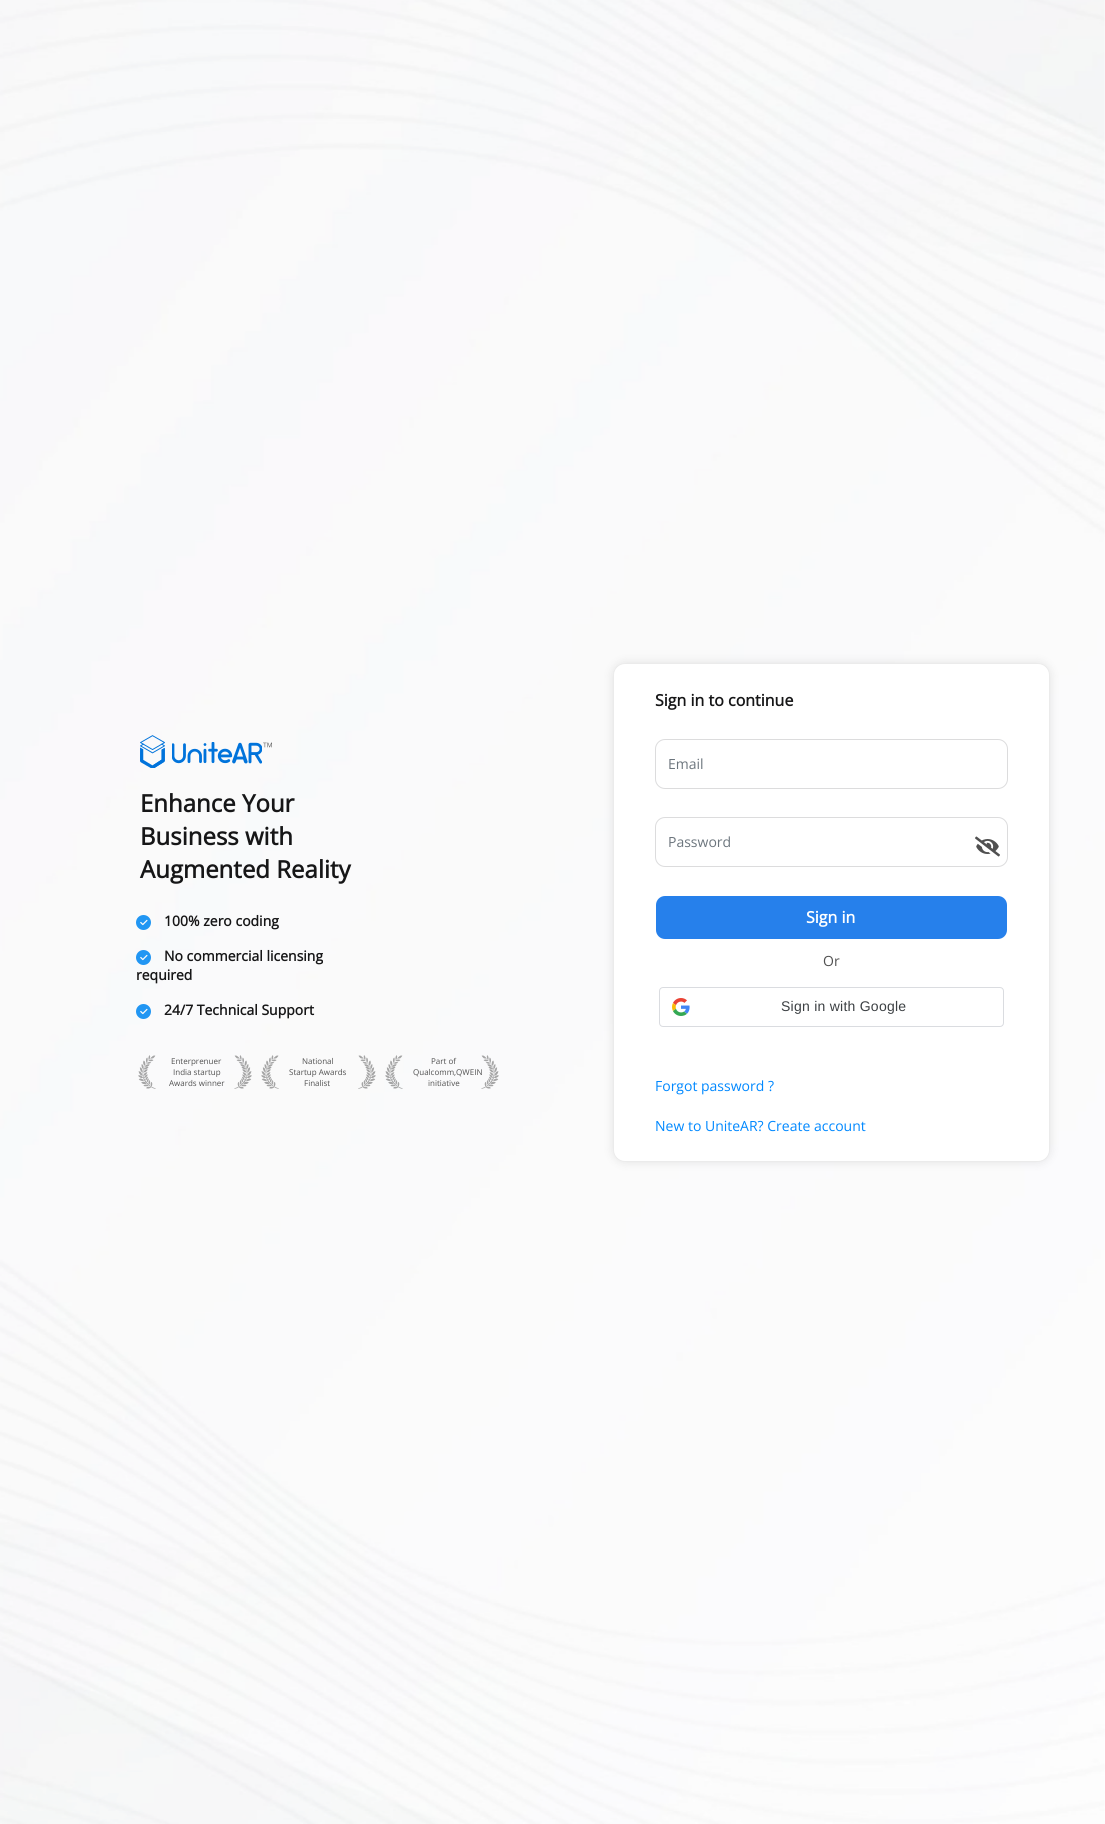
import math
import cairo

surface = cairo.ImageSurface(cairo.FORMAT_RGB24, 1105, 1824)
c = cairo.Context(surface)
options = cairo.FontOptions()
options.set_hint_metrics(cairo.HINT_METRICS_OFF)
options.set_hint_style(cairo.HINT_STYLE_NONE)
c.set_font_options(options)
c.set_miter_limit(4)
def C(code):
 c.set_source_rgb(*(v / 255 for v in bytes.fromhex(code[-6:])))
def F(family, size, italic, bold):
 c.select_font_face(family, cairo.FONT_SLANT_ITALIC if italic else cairo.FONT_SLANT_NORMAL, cairo.FONT_WEIGHT_BOLD if bold else cairo.FONT_WEIGHT_NORMAL)
 c.set_font_size(size)
def T(x, y, s):
 c.move_to(x, y)
 c.show_text(s)
def L(x, y, s, letter, word):
 c.move_to(x, y)
 for ch in s:
  c.show_text(ch)
  c.rel_move_to(letter + word * (ch == ' '), 0)
def Q(x, y, w, h, r):
 c.new_sub_path()
 for i, (u, v) in enumerate([(x + w - r, y + h - r), (x + r, y + h - r), (x + r, y + r), (x + w - r, y + r)]):
  c.arc(u, v, r, i * math.pi / 2, (i + 1) * math.pi / 2)
 c.close_path()
def S(x, y, w, h, r, blur, alpha):
 c.push_group_with_content(cairo.CONTENT_ALPHA)
 c.set_operator(cairo.OPERATOR_SOURCE)
 for i in range(15, -16, -2):
  e = blur * i / 6
  if min(w, h) + 2 * e > 0:
   c.set_source_rgba(0, 0, 0, alpha * math.erfc((i - 1) / 8.5) / 2)
   Q(x - e, y - e, w + 2 * e, h + 2 * e, max(0, min(r + e + blur * .6, min(w, h) / 2 + e)))
   c.fill()
 c.mask(c.pop_group())
def I(path, x, y, w, h):
 c.save()
 c.set_source_surface(cairo.ImageSurface.create_from_png(path), x, y)
 c.rectangle(x, y, w, h)
 c.fill()
 c.restore()
C('ffffff')
c.paint()
I('1.png',0,0,1105,1824)
I('2.png',140,735,132,33)
F('Open Sans',24,0,1)
C('161617')
T(140,812,'Enhance Your')
T(140,845,'Business with')
T(140,878,'Augmented Reality')
I('3.png',136,915,15,15)
F('Open Sans',14,0,1)
T(164,926,'100% zero coding')
I('4.png',136,950,15,15)
T(164,961,'No commercial licensing')
T(136,980,'required')
I('5.png',136,1004,15,15)
T(164,1015,'24/7 Technical Support')
I('6.png',138,1055,114,34)
I('7.png',261,1055,115,34)
I('8.png',385,1055,114,34)
F('Open Sans',8,0,0)
C('505050')
T(171,1064,'Enterprenuer')
T(173,1075,'India startup')
T(169,1086,'Awards winner')
T(302,1064,'National')
T(289,1075,'Startup Awards')
T(304,1086,'Finalist')
T(431,1064,'Part of')
T(413,1075,'Qualcomm,QWEIN')
T(428,1086,'initiative')
C('000000')
S(613,663,437,499,12,5,.1)
C('ffffff')
Q(613.5,663.5,436,498,11.5)
c.fill_preserve()
C('ebebeb')
c.set_line_width(1)
c.stroke()
F('Open Sans',16,0,1)
C('161617')
T(655,706,'Sign in to continue')
Q(655.5,739.5,352,49,9.5)
C('dcdcdd')
c.stroke()
F('Open Sans',14,0,0)
C('6c757d')
T(668,769,'Email')
Q(655.5,817.5,352,49,9.5)
C('dcdcdd')
c.stroke()
C('6c757d')
T(668,847,'Password')
I('9.png',975,836,25,21)
C('2680eb')
Q(656,896,351,43,9)
c.fill()
F('Open Sans',16,0,1)
C('ffffff')
T(806,923,'Sign in')
F('Open Sans',14,0,0)
C('505050')
T(823,966,'Or')
Q(659.5,987.5,344,39,3.5)
C('dadce0')
c.stroke()
I('10.png',672,998,18,18)
F('Liberation Sans',14,0,0)
C('3c4043')
L(781,1011,'Sign in with Google',.25,0)
F('Open Sans',14,0,0)
C('0088ff')
T(655,1091,'Forgot password ?')
T(655,1131,'New to UniteAR? Create account')
surface.write_to_png('o.png')
